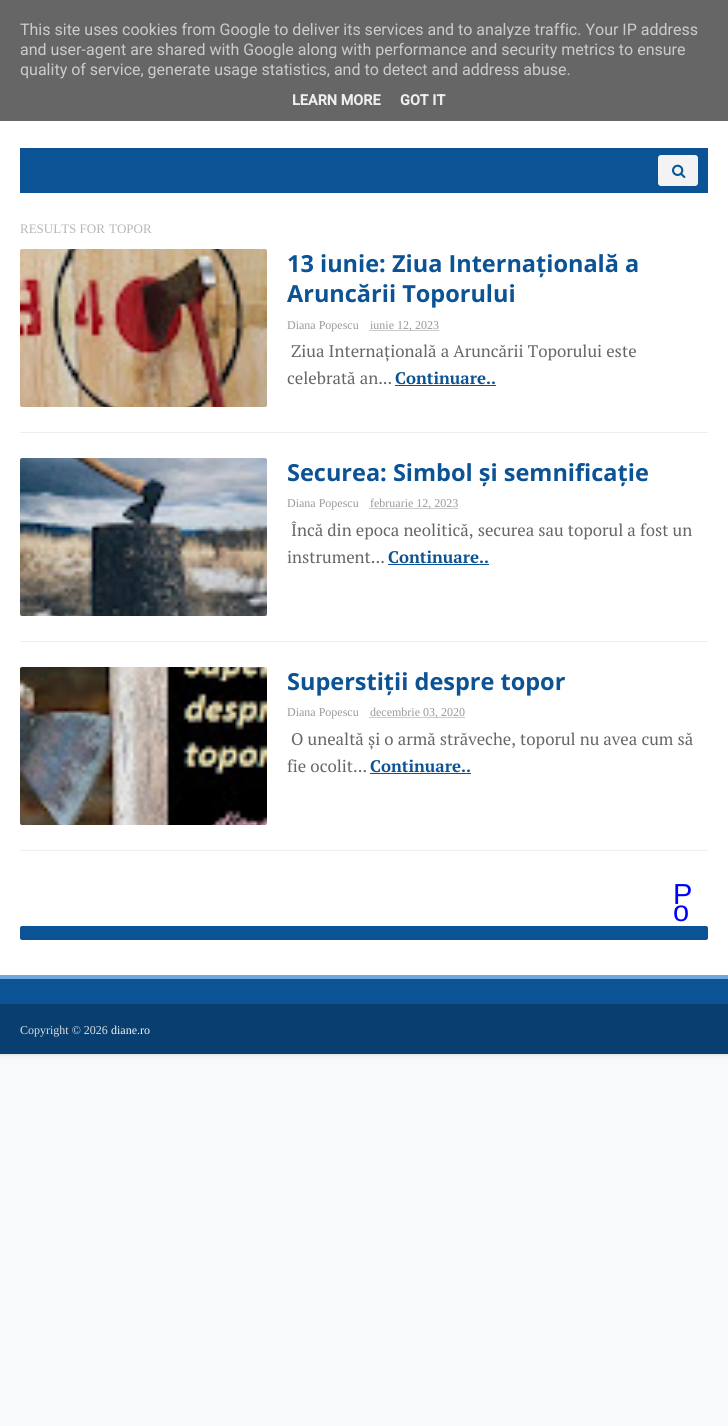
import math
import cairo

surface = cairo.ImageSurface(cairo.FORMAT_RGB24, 728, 1426)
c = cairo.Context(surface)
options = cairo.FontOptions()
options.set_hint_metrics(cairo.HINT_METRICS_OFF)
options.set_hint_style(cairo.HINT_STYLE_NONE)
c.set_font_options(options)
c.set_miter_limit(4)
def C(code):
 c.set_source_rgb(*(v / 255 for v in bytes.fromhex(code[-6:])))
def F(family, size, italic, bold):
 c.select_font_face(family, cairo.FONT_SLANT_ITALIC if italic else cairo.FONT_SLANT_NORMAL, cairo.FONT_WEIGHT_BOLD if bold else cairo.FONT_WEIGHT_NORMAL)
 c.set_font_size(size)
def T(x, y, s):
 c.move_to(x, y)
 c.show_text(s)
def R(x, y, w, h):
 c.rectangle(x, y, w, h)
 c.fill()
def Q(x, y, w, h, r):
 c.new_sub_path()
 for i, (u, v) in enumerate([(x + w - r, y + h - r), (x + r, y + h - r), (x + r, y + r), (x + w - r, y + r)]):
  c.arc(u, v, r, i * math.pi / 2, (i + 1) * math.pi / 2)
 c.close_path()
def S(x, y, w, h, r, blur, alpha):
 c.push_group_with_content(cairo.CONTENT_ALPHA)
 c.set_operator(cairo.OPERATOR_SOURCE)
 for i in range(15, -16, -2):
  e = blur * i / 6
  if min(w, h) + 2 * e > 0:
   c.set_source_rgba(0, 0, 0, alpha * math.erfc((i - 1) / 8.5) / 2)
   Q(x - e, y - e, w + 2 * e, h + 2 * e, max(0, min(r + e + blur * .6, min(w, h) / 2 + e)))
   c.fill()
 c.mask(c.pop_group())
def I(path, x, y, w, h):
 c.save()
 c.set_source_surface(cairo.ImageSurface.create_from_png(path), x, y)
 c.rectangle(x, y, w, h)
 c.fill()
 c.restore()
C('f8f9fa')
c.paint()
C('cccccc')
S(0,0,728,1054,0,2.5,1)
C('666666')
R(0,0,728,121)
F('Roboto',16,0,0)
C('cccccc')
T(20,35,'This site uses cookies from Google to deliver its services and to analyze traffic. Your IP address')
T(20,55,'and user-agent are shared with Google along with performance and security metrics to ensure')
T(20,75,'quality of service, generate usage statistics, and to detect and address abuse.')
F('Roboto',14.5,0,1)
C('eeeeee')
T(292,105,'LEARN MORE')
T(400,105,'GOT IT')
C('ffffff')
R(0,121,728,854)
C('0b5394')
R(20,148,688,45)
C('f3f3f3')
Q(658,155,40,31,3)
c.fill()
I('1.png',672,164,14,14)
F('Liberation Serif',13,0,0)
C('b6b6b6')
T(20,233,'RESULTS FOR')
T(109,233,'TOPOR')
C('eeeeee')
R(20,432,688,1)
I('2.png',20,249,247,158)
F('Open Sans',23.5,0,1)
C('0b5394')
T(287,272,'13 iunie: Ziua Internațională a')
T(287,302,'Aruncării Toporului')
F('Liberation Serif',12,0,0)
C('999999')
T(287,329,'Diana Popescu')
c.new_path()
c.move_to(369.5,330.5)
c.line_to(438.5,330.5)
c.set_line_width(1)
c.set_dash([1,1])
c.stroke()
T(370,329,'iunie 12, 2023')
F('PT Serif',16.8,0,0)
C('666666')
T(291,357,'Ziua Internațională a Aruncării Toporului este')
T(287,384,'celebrată an...')
F('PT Serif',16.8,0,1)
C('0b5394')
T(395,384,'Continuare..')
R(395,385,101,1)
C('eeeeee')
R(20,641,688,1)
I('3.png',20,458,247,158)
F('Open Sans',23.5,0,1)
C('0b5394')
T(287,481,'Securea: Simbol și semnificație')
F('Liberation Serif',12,0,0)
C('999999')
T(287,507,'Diana Popescu')
c.new_path()
c.move_to(369.5,508.5)
c.line_to(458,508.5)
c.stroke()
T(370,507,'februarie 12, 2023')
F('PT Serif',16.8,0,0)
C('666666')
T(291,536,'Încă din epoca neolitică, securea sau toporul a fost un')
T(287,563,'instrument...')
F('PT Serif',16.8,0,1)
C('0b5394')
T(388,563,'Continuare..')
R(388,564,101,1)
C('eeeeee')
R(20,850,688,1)
I('4.png',20,667,247,158)
F('Open Sans',23.5,0,1)
C('0b5394')
T(287,690,'Superstiții despre topor')
F('Liberation Serif',12,0,0)
C('999999')
T(287,716,'Diana Popescu')
c.new_path()
c.move_to(369.5,717.5)
c.line_to(464.5,717.5)
c.stroke()
T(370,716,'decembrie 03, 2020')
F('PT Serif',16.8,0,0)
C('666666')
T(291,745,'O unealtă și o armă străveche, toporul nu avea cum să')
T(287,772,'fie ocolit...')
F('PT Serif',16.8,0,1)
C('0b5394')
T(370,772,'Continuare..')
R(370,773,101,1)
F('Liberation Sans',29,0,0)
C('0000ff')
T(673,904,'P')
T(673,921,'o')
C('0b5394')
c.new_path()
c.move_to(22,926)
c.line_to(249,926)
c.line_to(249,940)
c.line_to(22,940)
c.curve_to(21,940,20,939,20,938)
c.line_to(20,928)
c.curve_to(20,927,21,926,22,926)
c.close_path()
c.fill()
R(249,926,230,14)
c.new_path()
c.move_to(479,926)
c.line_to(706,926)
c.curve_to(707,926,708,927,708,928)
c.line_to(708,938)
c.curve_to(708,939,707,940,706,940)
c.line_to(479,940)
c.close_path()
c.fill()
R(0,979,728,25)
C('6fa8dc')
R(0,975,728,4)
C('083f70')
R(0,1004,728,50)
F('Liberation Serif',12,0,0)
C('dddddd')
T(20,1034,'Copyright © 2026')
C('f5f5f5')
T(111,1034,'diane.ro')
surface.write_to_png('o.png')
